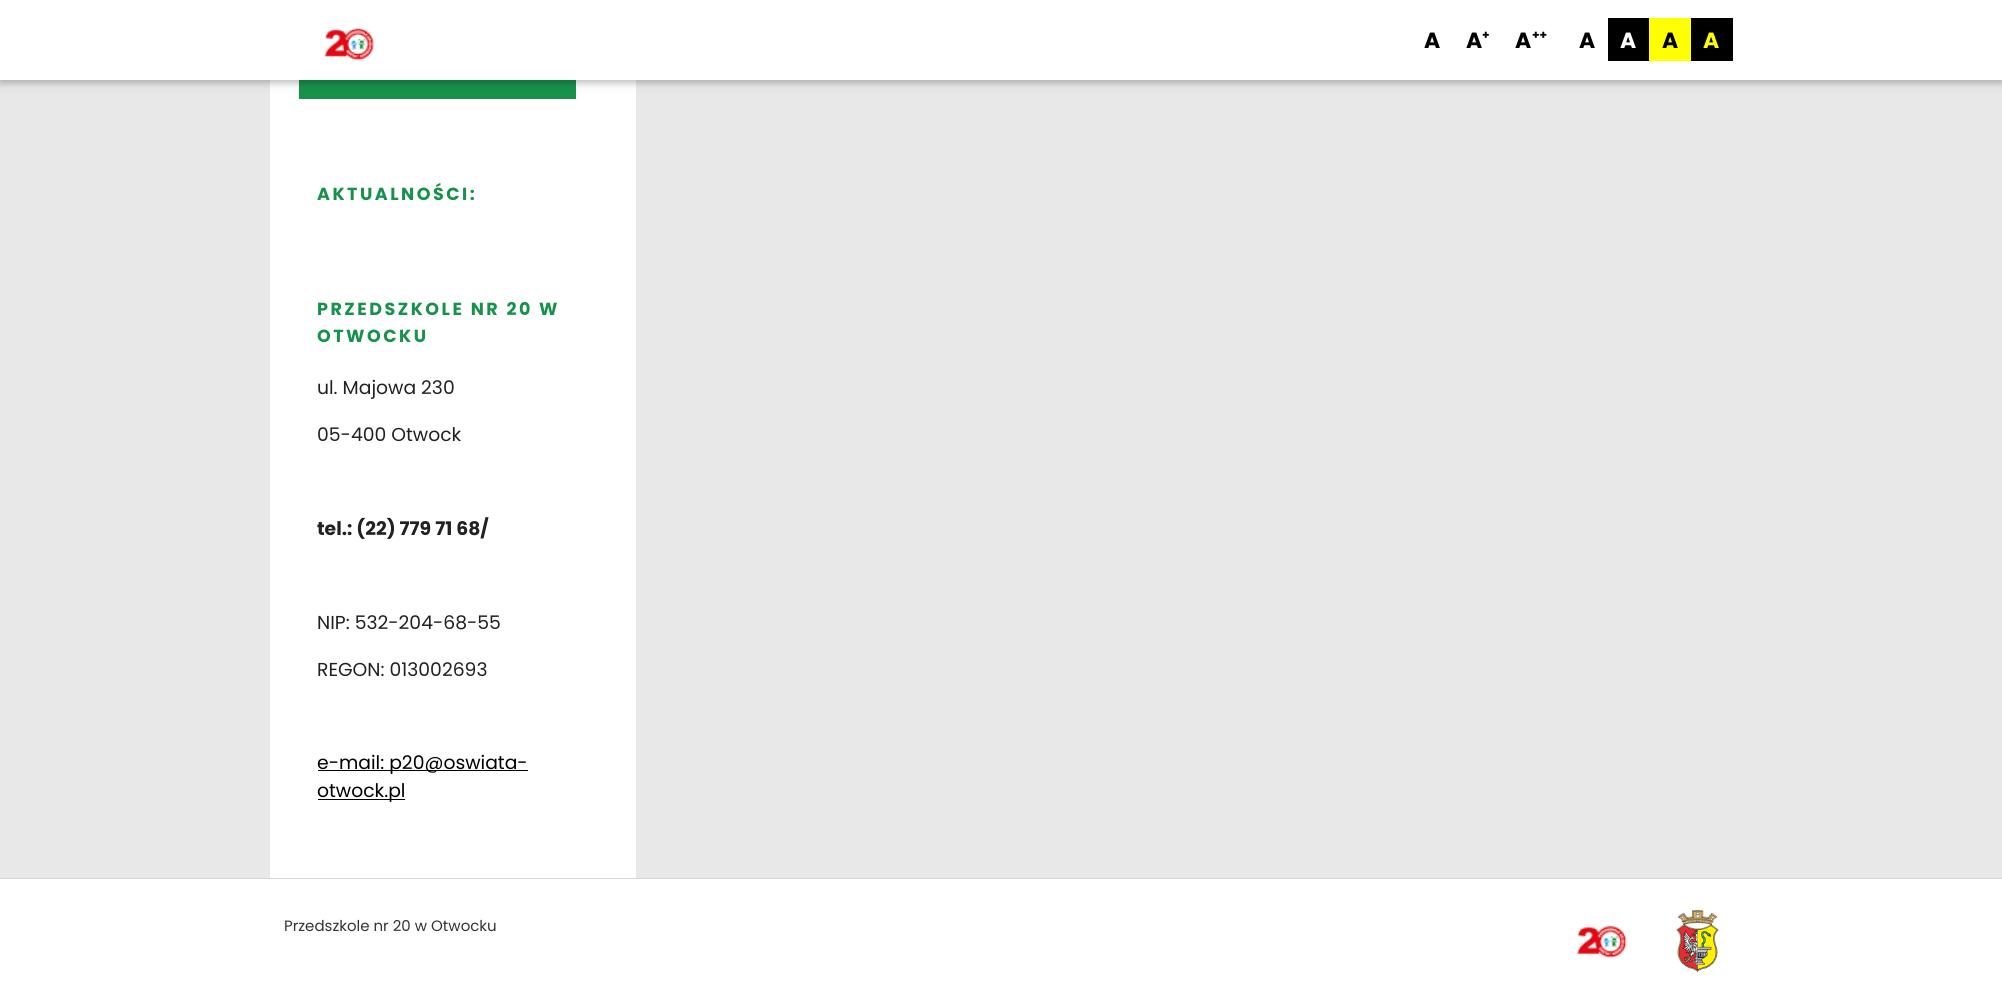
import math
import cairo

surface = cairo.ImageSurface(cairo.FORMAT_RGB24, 2002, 1003)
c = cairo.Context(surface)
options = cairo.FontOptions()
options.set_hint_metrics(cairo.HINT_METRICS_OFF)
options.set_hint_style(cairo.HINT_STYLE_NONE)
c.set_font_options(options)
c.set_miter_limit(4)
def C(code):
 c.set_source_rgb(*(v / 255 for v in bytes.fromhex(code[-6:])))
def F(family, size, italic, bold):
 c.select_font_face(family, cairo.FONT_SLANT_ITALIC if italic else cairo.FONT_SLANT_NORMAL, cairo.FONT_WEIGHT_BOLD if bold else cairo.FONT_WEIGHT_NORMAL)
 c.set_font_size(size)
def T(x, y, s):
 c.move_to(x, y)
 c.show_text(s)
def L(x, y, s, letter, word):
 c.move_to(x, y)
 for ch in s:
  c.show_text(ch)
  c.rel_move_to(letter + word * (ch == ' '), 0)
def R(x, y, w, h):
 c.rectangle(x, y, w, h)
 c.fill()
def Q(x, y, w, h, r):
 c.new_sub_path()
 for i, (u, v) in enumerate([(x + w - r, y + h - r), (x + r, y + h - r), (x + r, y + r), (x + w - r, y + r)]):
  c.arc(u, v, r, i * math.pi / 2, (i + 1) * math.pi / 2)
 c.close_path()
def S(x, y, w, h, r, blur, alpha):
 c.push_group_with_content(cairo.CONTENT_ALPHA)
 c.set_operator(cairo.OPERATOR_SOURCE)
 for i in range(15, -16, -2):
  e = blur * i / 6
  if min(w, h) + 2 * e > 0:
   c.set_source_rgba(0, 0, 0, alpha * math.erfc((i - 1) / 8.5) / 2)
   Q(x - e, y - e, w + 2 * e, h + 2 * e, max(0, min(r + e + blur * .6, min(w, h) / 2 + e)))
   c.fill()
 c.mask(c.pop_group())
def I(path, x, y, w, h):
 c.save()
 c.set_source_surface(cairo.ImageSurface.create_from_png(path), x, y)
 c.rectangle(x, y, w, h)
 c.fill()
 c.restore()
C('e8e8e8')
c.paint()
C('ffffff')
R(270,80,366,798)
C('17924b')
R(299,80,277,19)
C('000000')
S(0,3,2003,80,0,6,.12)
S(0,3,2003,80,0,3,.16)
C('ffffff')
R(0,0,2002,80)
I('1.png',324,28,50,33)
F('Poppins',22,0,1)
C('000000')
T(1424,48,'A')
T(1466,48,'A')
F('Poppins',12,0,1)
T(1482,39,'+')
F('Poppins',22,0,1)
T(1515,48,'A')
F('Poppins',12,0,1)
T(1532,39,'++')
F('Poppins',22,0,1)
T(1579,48,'A')
R(1608,18,41,43)
C('ffffff')
T(1620,48,'A')
C('ffff00')
R(1649,18,42,43)
C('000000')
T(1662,48,'A')
R(1691,18,42,43)
C('ffff00')
T(1703,48,'A')
F('Poppins',17.5,0,1)
C('17924b')
L(317,200,'AKTUALNOŚCI:',2.5,0)
L(317,315,'PRZEDSZKOLE NR 20 W',2.5,0)
L(317,342,'OTWOCKU',2.5,0)
F('Poppins',18.75,0,0)
C('212121')
T(317,394,'ul. Majowa 230')
T(317,441,'05-400 Otwock')
F('Poppins',18.75,0,1)
T(317,535,'tel.: (22) 779 71 68/')
F('Poppins',18.75,0,0)
T(317,629,'NIP: 532-204-68-55')
T(317,676,'REGON: 013002693')
C('000000')
R(318,770,210,1)
T(317,769,'e-mail: p20@oswiata-')
R(318,799,87,1)
T(317,797,'otwock.pl')
C('ffffff')
R(0,879,2002,124)
C('d6d6d6')
R(0,878,2002,1)
F('Poppins',15,0,0)
C('333333')
T(284,931,'Przedszkole nr 20 w Otwocku')
I('2.png',1577,926,50,32)
I('3.png',1676,910,43,63)
surface.write_to_png('o.png')
